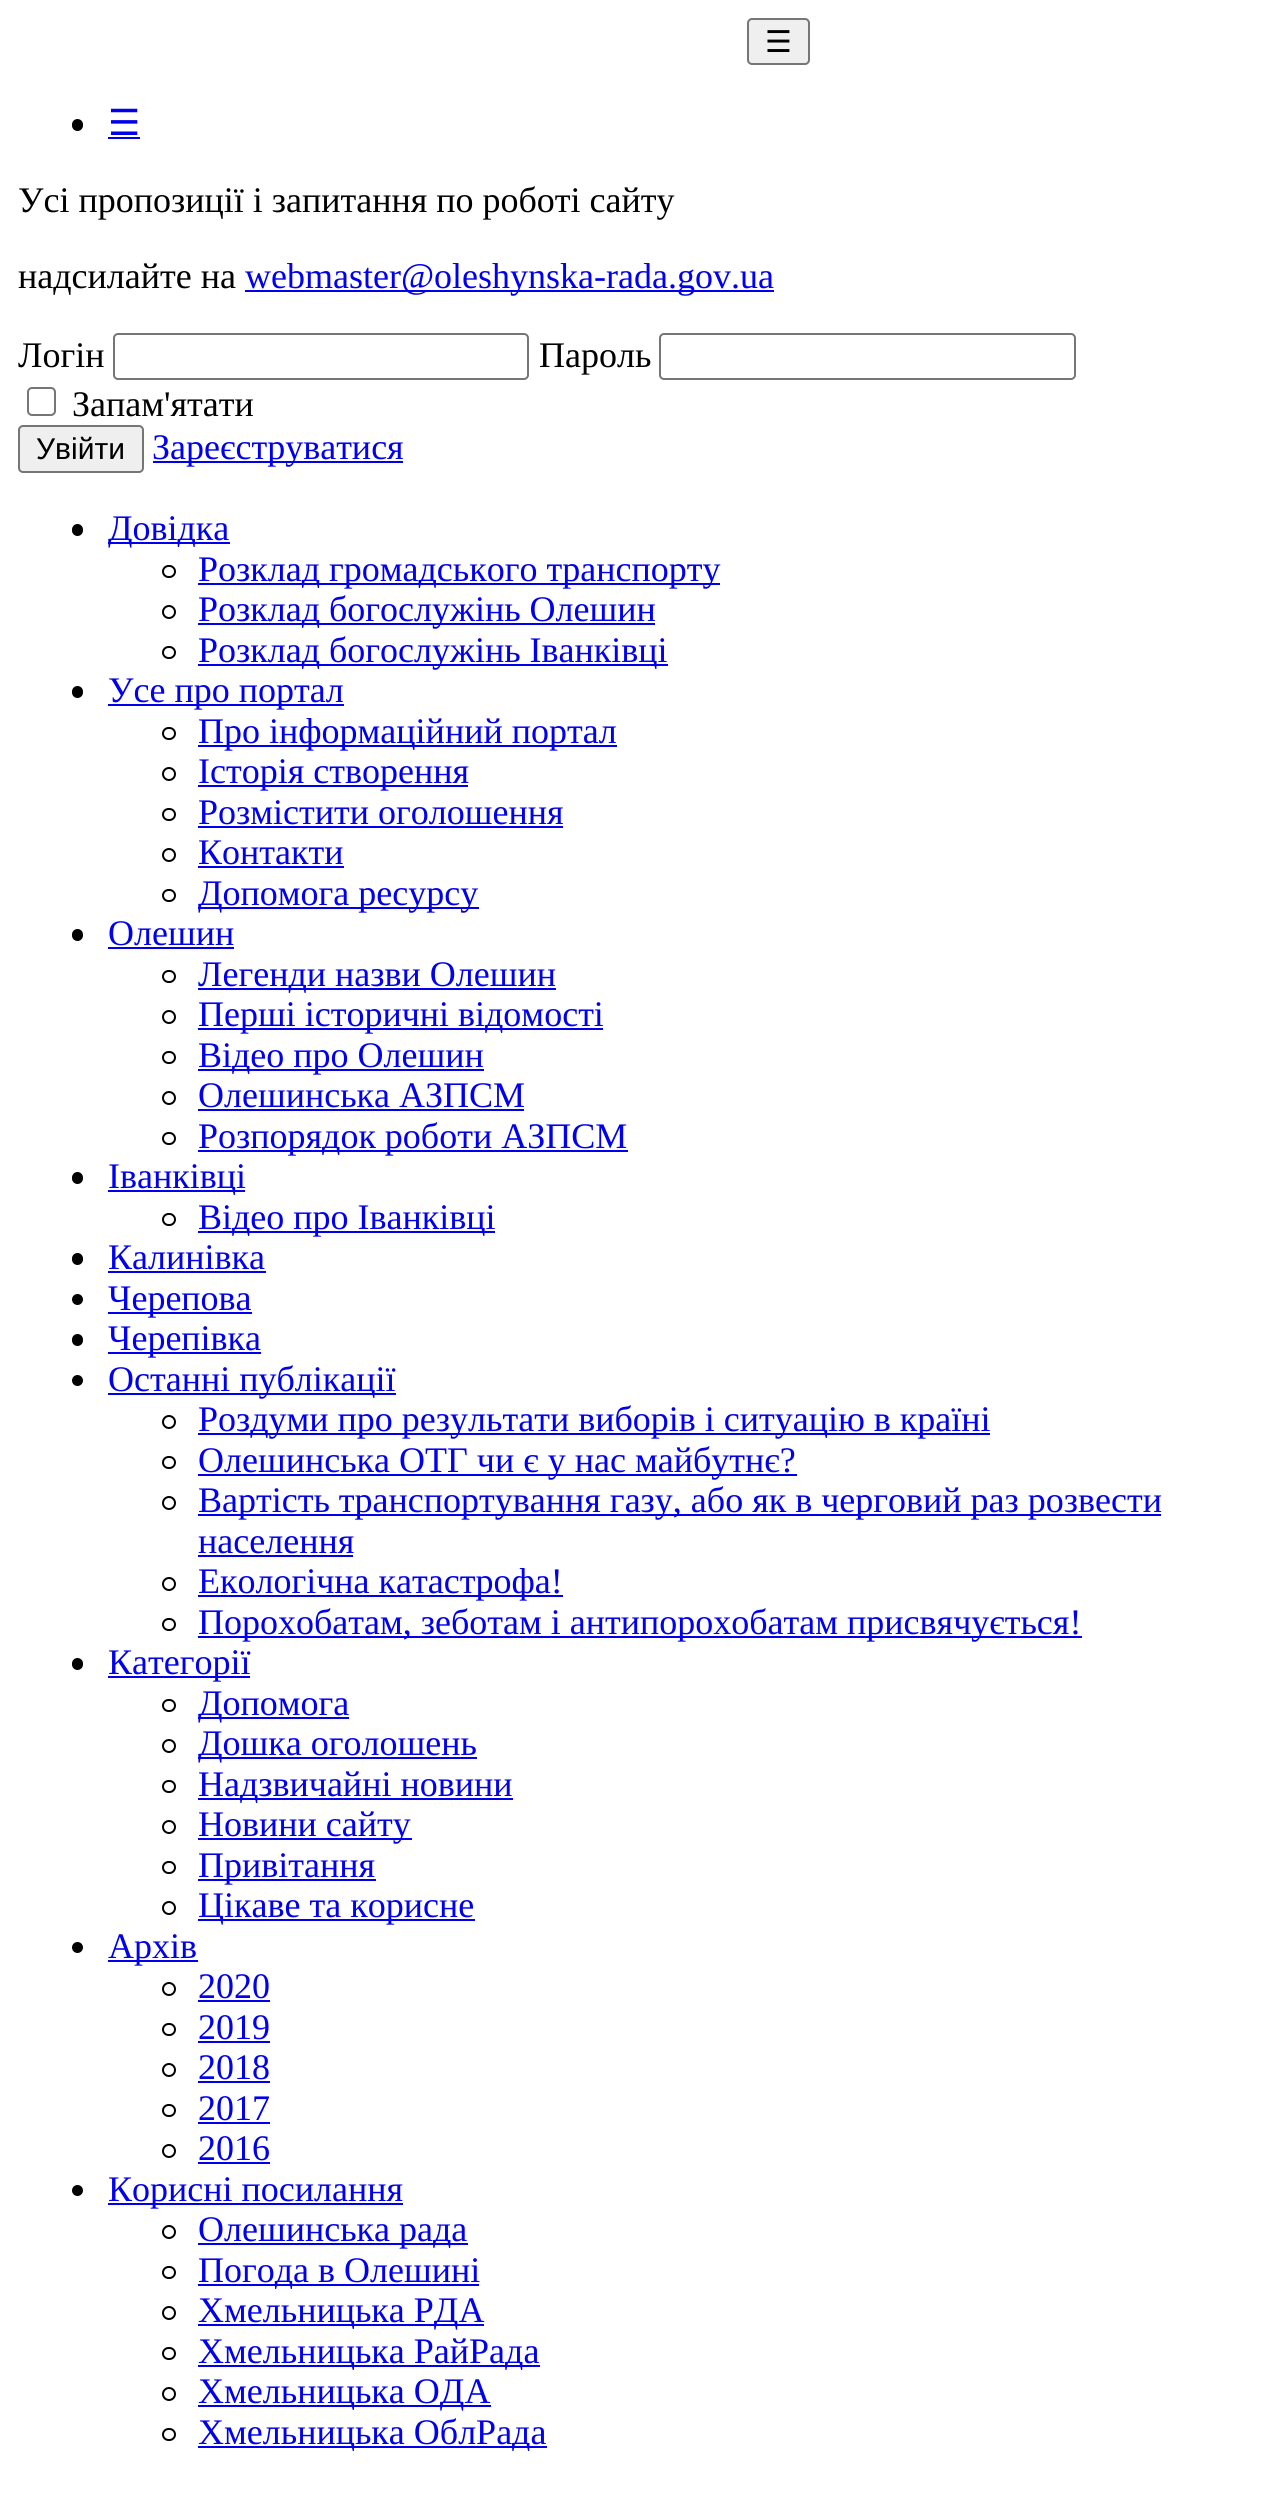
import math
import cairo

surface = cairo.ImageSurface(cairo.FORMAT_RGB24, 1283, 2511)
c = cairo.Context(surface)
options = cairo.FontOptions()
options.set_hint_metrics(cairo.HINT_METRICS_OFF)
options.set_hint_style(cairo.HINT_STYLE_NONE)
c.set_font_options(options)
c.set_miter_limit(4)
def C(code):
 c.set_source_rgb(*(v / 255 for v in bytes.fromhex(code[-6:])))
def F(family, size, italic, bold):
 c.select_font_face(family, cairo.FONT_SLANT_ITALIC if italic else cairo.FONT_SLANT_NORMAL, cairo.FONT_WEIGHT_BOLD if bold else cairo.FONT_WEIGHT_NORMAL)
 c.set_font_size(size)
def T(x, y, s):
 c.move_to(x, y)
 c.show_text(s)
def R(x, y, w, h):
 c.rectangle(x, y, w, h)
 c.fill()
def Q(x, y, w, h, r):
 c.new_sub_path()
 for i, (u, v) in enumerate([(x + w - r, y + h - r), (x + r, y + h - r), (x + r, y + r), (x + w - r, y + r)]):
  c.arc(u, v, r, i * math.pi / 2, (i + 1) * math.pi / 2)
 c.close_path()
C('ffffff')
c.paint()
C('efefef')
Q(748,19,61,45,4)
c.fill_preserve()
C('767676')
c.stroke()
F('DejaVu Sans',30,0,0)
C('000000')
T(765,52,'☰')
Q(72,119,11,12,5.5)
c.fill()
F('DejaVu Sans',36,0,0)
C('0000ee')
T(108,135,'☰')
R(108,137,32,2)
F('Liberation Serif',36,0,0)
C('000000')
T(18,212,'Усі пропозиції і запитання по роботі сайту')
T(18,288,'надсилайте на')
C('0000ee')
R(245,290,529,2)
T(245,288,'webmaster@oleshynska-rada.gov.ua')
C('000000')
T(18,367,'Логін')
Q(114,334,414,45,4)
C('767676')
c.stroke()
C('000000')
T(539,367,'Пароль')
Q(660,334,415,45,4)
C('767676')
c.stroke()
Q(28,388,27,27,4)
c.stroke()
C('000000')
T(72,416,'Запам\'ятати')
C('efefef')
Q(19,426,124,46,4)
c.fill_preserve()
C('767676')
c.stroke()
F('Liberation Sans',30,0,0)
C('000000')
T(36,459,'Увійти')
C('0000ee')
R(153,461,250,2)
F('Liberation Serif',36,0,0)
T(152,459,'Зареєструватися')
C('000000')
Q(72,524,11,12,5.5)
c.fill()
C('0000ee')
R(108,542,122,2)
T(108,540,'Довідка')
Q(163,566,12,11,5.5)
C('000000')
c.stroke()
C('0000ee')
R(198,583,522,2)
T(198,581,'Розклад громадського транспорту')
c.new_path()
c.arc(169,612,6,0,2 * math.pi)
C('000000')
c.stroke()
C('0000ee')
R(198,623,457,2)
T(198,621,'Розклад богослужінь Олешин')
Q(163,647,12,11,5.5)
C('000000')
c.stroke()
C('0000ee')
R(198,664,470,2)
T(198,662,'Розклад богослужінь Іванківці')
C('000000')
Q(72,686,11,12,5.5)
c.fill()
C('0000ee')
R(108,704,236,2)
T(108,702,'Усе про портал')
Q(163,728,12,11,5.5)
C('000000')
c.stroke()
C('0000ee')
R(198,745,419,2)
T(198,743,'Про інформаційний портал')
c.new_path()
c.arc(169,774,6,0,2 * math.pi)
C('000000')
c.stroke()
C('0000ee')
R(198,785,270,2)
T(198,783,'Історія створення')
Q(163,809,12,11,5.5)
C('000000')
c.stroke()
C('0000ee')
T(198,824,'Розмістити оголошення')
R(198,826,365,2)
c.new_path()
c.arc(169,855,6,0,2 * math.pi)
C('000000')
c.stroke()
C('0000ee')
T(198,864,'Контакти')
R(198,866,146,2)
Q(163,890,12,11,5.5)
C('000000')
c.stroke()
C('0000ee')
R(198,907,281,2)
T(198,905,'Допомога ресурсу')
C('000000')
Q(72,929,11,12,5.5)
c.fill()
C('0000ee')
T(108,945,'Олешин')
R(108,947,126,2)
Q(163,971,12,11,5.5)
C('000000')
c.stroke()
C('0000ee')
R(198,988,358,2)
T(198,986,'Легенди назви Олешин')
c.new_path()
c.arc(169,1017,6,0,2 * math.pi)
C('000000')
c.stroke()
C('0000ee')
R(198,1028,405,2)
T(198,1026,'Перші історичні відомості')
Q(163,1052,12,11,5.5)
C('000000')
c.stroke()
C('0000ee')
R(198,1069,286,2)
T(198,1067,'Відео про Олешин')
c.new_path()
c.arc(169,1098,6,0,2 * math.pi)
C('000000')
c.stroke()
C('0000ee')
T(198,1107,'Олешинська АЗПСМ')
R(198,1109,326,2)
Q(163,1133,12,11,5.5)
C('000000')
c.stroke()
C('0000ee')
R(198,1150,430,2)
T(198,1148,'Розпорядок роботи АЗПСМ')
C('000000')
Q(72,1172,11,12,5.5)
c.fill()
C('0000ee')
R(108,1190,137,2)
T(108,1188,'Іванківці')
Q(163,1214,12,11,5.5)
C('000000')
c.stroke()
C('0000ee')
R(198,1231,297,2)
T(198,1229,'Відео про Іванківці')
C('000000')
Q(72,1253,11,12,5.5)
c.fill()
C('0000ee')
T(108,1269,'Калинівка')
R(108,1271,158,2)
C('000000')
c.new_path()
c.arc(77.5,1299.5,5.5,0,2 * math.pi)
c.fill()
C('0000ee')
R(108,1312,144,2)
T(108,1310,'Черепова')
C('000000')
Q(72,1334,11,12,5.5)
c.fill()
C('0000ee')
R(108,1352,153,2)
T(108,1350,'Черепівка')
C('000000')
c.new_path()
c.arc(77.5,1380.5,5.5,0,2 * math.pi)
c.fill()
C('0000ee')
R(108,1393,288,2)
T(108,1391,'Останні публікації')
c.new_path()
c.arc(169,1422,6,0,2 * math.pi)
C('000000')
c.stroke()
C('0000ee')
R(198,1433,792,2)
T(198,1431,'Роздуми про результати виборів і ситуацію в країні')
Q(163,1457,12,11,5.5)
C('000000')
c.stroke()
C('0000ee')
R(198,1474,599,2)
T(198,1472,'Олешинська ОТГ чи є у нас майбутнє?')
c.new_path()
c.arc(169,1503,6,0,2 * math.pi)
C('000000')
c.stroke()
C('0000ee')
R(198,1514,963,2)
T(198,1512,'Вартість транспортування газу, або як в черговий раз розвести')
T(198,1553,'населення')
R(198,1555,155,2)
c.new_path()
c.arc(169,1584,6,0,2 * math.pi)
C('000000')
c.stroke()
C('0000ee')
R(198,1595,365,2)
T(198,1593,'Екологічна катастрофа!')
Q(163,1619,12,11,5.5)
C('000000')
c.stroke()
C('0000ee')
R(198,1636,884,2)
T(198,1634,'Порохобатам, зеботам і антипорохобатам присвячується!')
C('000000')
Q(72,1658,11,12,5.5)
c.fill()
C('0000ee')
R(108,1676,142,2)
T(108,1674,'Категорії')
Q(163,1700,12,11,5.5)
C('000000')
c.stroke()
C('0000ee')
R(198,1717,151,2)
T(198,1715,'Допомога')
c.new_path()
c.arc(169,1746,6,0,2 * math.pi)
C('000000')
c.stroke()
C('0000ee')
R(198,1757,279,2)
T(198,1755,'Дошка оголошень')
Q(163,1781,12,11,5.5)
C('000000')
c.stroke()
C('0000ee')
R(198,1798,315,2)
T(198,1796,'Надзвичайні новини')
c.new_path()
c.arc(169,1827,6,0,2 * math.pi)
C('000000')
c.stroke()
C('0000ee')
R(198,1838,214,2)
T(198,1836,'Новини сайту')
Q(163,1862,12,11,5.5)
C('000000')
c.stroke()
C('0000ee')
R(198,1879,178,2)
T(198,1877,'Привітання')
c.new_path()
c.arc(169,1908,6,0,2 * math.pi)
C('000000')
c.stroke()
C('0000ee')
R(198,1919,277,2)
T(198,1917,'Цікаве та корисне')
C('000000')
c.new_path()
c.arc(77.5,1947.5,5.5,0,2 * math.pi)
c.fill()
C('0000ee')
R(108,1960,90,2)
T(108,1958,'Архів')
c.new_path()
c.arc(169,1989,6,0,2 * math.pi)
C('000000')
c.stroke()
C('0000ee')
T(198,1998,'2020')
R(198,2000,72,2)
Q(163,2024,12,11,5.5)
C('000000')
c.stroke()
C('0000ee')
T(198,2039,'2019')
R(198,2041,72,2)
c.new_path()
c.arc(169,2070,6,0,2 * math.pi)
C('000000')
c.stroke()
C('0000ee')
T(198,2079,'2018')
R(198,2081,72,2)
Q(163,2105,12,11,5.5)
C('000000')
c.stroke()
C('0000ee')
T(198,2120,'2017')
R(198,2122,72,2)
c.new_path()
c.arc(169,2151,6,0,2 * math.pi)
C('000000')
c.stroke()
C('0000ee')
T(198,2160,'2016')
R(198,2162,72,2)
C('000000')
c.new_path()
c.arc(77.5,2190.5,5.5,0,2 * math.pi)
c.fill()
C('0000ee')
R(108,2203,295,2)
T(108,2201,'Корисні посилання')
c.new_path()
c.arc(169,2232,6,0,2 * math.pi)
C('000000')
c.stroke()
C('0000ee')
R(198,2243,270,2)
T(198,2241,'Олешинська рада')
Q(163,2267,12,11,5.5)
C('000000')
c.stroke()
C('0000ee')
R(198,2284,281,2)
T(198,2282,'Погода в Олешині')
c.new_path()
c.arc(169,2313,6,0,2 * math.pi)
C('000000')
c.stroke()
C('0000ee')
R(198,2324,286,2)
T(198,2322,'Хмельницька РДА')
Q(163,2348,12,11,5.5)
C('000000')
c.stroke()
C('0000ee')
R(198,2365,342,2)
T(198,2363,'Хмельницька РайРада')
c.new_path()
c.arc(169,2394,6,0,2 * math.pi)
C('000000')
c.stroke()
C('0000ee')
R(198,2405,293,2)
T(198,2403,'Хмельницька ОДА')
Q(163,2429,12,11,5.5)
C('000000')
c.stroke()
C('0000ee')
R(198,2446,349,2)
T(198,2444,'Хмельницька ОблРада')
surface.write_to_png('o.png')
